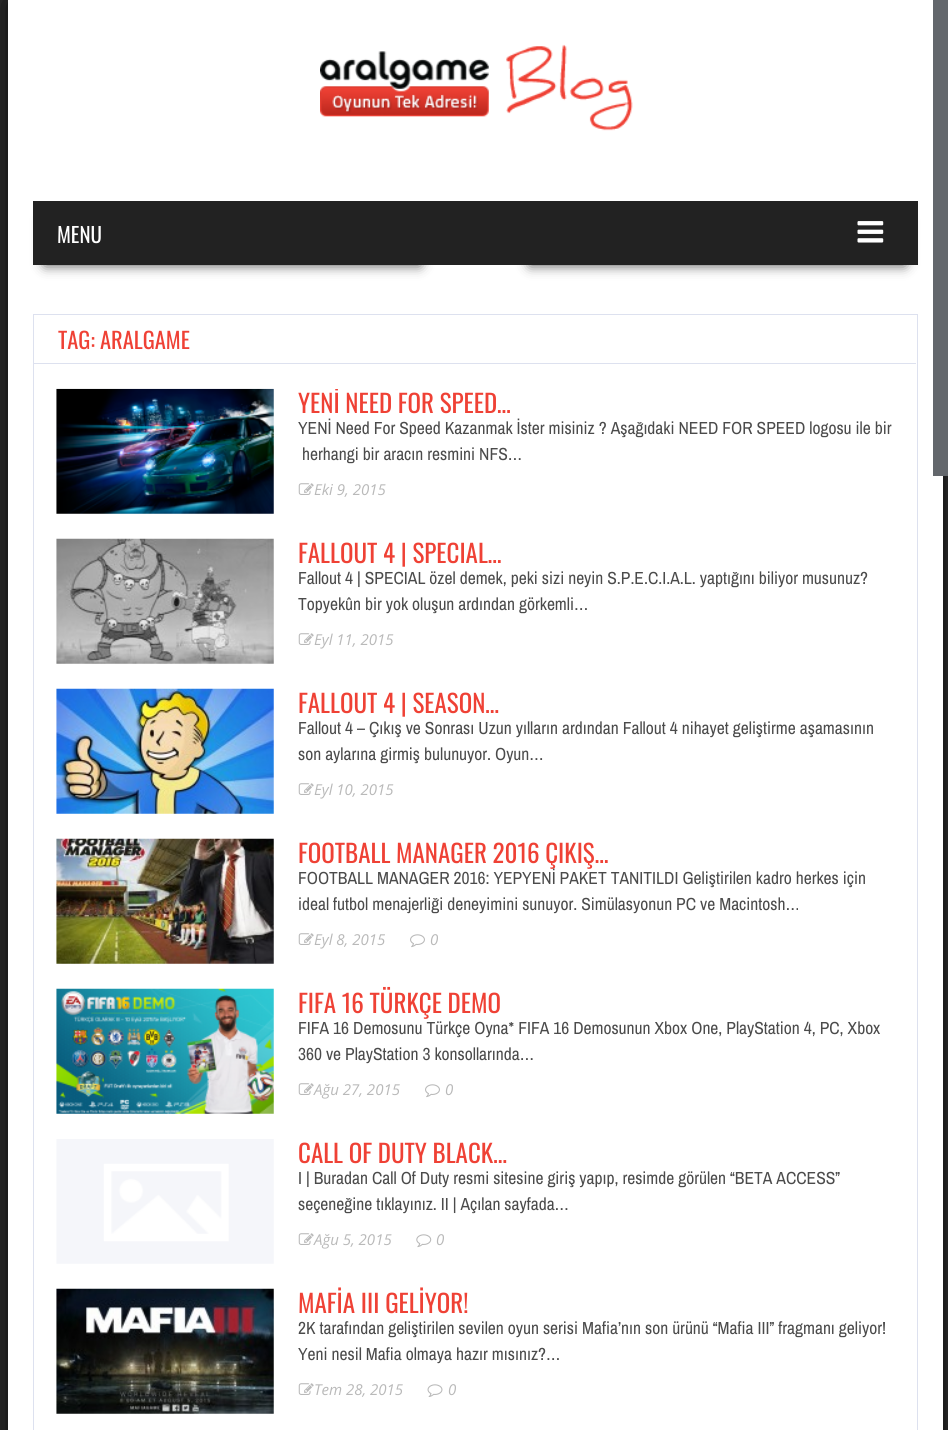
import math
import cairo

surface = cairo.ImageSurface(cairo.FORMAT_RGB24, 948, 1430)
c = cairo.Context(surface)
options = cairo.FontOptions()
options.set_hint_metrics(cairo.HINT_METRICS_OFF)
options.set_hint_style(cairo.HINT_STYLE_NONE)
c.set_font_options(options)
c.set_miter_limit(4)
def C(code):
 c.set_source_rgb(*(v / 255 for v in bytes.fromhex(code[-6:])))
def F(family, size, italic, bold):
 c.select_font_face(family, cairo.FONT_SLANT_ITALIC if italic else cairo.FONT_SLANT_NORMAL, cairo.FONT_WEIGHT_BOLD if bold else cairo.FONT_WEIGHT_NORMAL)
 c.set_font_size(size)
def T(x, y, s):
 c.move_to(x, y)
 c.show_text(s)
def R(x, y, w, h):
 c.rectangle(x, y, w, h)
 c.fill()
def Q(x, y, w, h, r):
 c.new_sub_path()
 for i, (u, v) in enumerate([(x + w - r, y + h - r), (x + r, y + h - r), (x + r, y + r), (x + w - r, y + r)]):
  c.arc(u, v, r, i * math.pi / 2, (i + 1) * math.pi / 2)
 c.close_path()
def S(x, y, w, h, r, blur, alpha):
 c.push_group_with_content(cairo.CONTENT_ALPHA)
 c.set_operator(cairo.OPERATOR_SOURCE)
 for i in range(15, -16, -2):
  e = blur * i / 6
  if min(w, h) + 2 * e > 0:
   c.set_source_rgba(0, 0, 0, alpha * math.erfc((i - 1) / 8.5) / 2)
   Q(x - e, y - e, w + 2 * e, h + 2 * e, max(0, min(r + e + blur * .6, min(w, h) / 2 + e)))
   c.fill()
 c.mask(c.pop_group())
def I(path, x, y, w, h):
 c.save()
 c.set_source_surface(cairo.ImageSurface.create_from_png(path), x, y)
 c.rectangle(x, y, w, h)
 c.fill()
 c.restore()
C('333333')
c.paint()
C('000000')
S(8,0,935,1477,0,15.5,.9)
C('ffffff')
R(8,0,935,1430)
I('1.png',320,44,313,87)
C('000000')
S(45,220,375,45,0,6.5,.7)
S(530,220,375,45,0,6.5,.7)
C('222222')
R(33,201,885,64)
F('Oswald',21,0,0)
C('ffffff')
T(57,243,'MENU')
I('2.png',857,221,27,22)
c.rectangle(33.5,314.5,884,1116)
C('dde1ef')
c.set_line_width(1)
c.stroke()
R(34,363,882,1)
F('Oswald',22.5,0,0)
C('ef4135')
T(58,349,'TAG: ARALGAME')
I('3.png',56,388,218,126)
c.save()
c.rectangle(56,389,838,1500)
c.clip()
F('Oswald',25,0,0)
T(298,413,'YENİ NEED FOR SPEED…')
c.restore()
F('Archivo Narrow',17.5,0,0)
C('4b4b4b')
T(298,434,'YENİ Need For Speed Kazanmak İster misiniz ? Aşağıdaki NEED FOR SPEED logosu ile bir')
T(302,460,'herhangi bir aracın resmini NFS…')
I('4.png',298,483,16,12)
F('Open Sans',15,1,0)
C('b9b9b9')
T(314,495,'Eki 9, 2015')
I('5.png',56,538,218,126)
F('Oswald',25,0,0)
C('ef4135')
T(298,563,'FALLOUT 4 | SPECIAL…')
F('Archivo Narrow',17.5,0,0)
C('4b4b4b')
T(298,584,'Fallout 4 | SPECIAL özel demek, peki sizi neyin S.P.E.C.I.A.L. yaptığını biliyor musunuz?')
T(298,610,'Topyekûn bir yok oluşun ardından görkemli…')
I('4.png',298,633,16,12)
F('Open Sans',15,1,0)
C('b9b9b9')
T(314,645,'Eyl 11, 2015')
I('6.png',56,688,218,126)
F('Oswald',25,0,0)
C('ef4135')
T(298,713,'FALLOUT 4 | SEASON…')
F('Archivo Narrow',17.5,0,0)
C('4b4b4b')
T(298,734,'Fallout 4 – Çıkış ve Sonrası Uzun yılların ardından Fallout 4 nihayet geliştirme aşamasının')
T(298,760,'son aylarına girmiş bulunuyor. Oyun…')
I('4.png',298,783,16,12)
F('Open Sans',15,1,0)
C('b9b9b9')
T(314,795,'Eyl 10, 2015')
I('7.png',56,838,218,126)
F('Oswald',25,0,0)
C('ef4135')
T(298,863,'FOOTBALL MANAGER 2016 ÇIKIŞ…')
F('Archivo Narrow',17.5,0,0)
C('4b4b4b')
T(298,884,'FOOTBALL MANAGER 2016: YEPYENİ PAKET TANITILDI Geliştirilen kadro herkes için')
T(298,910,'ideal futbol menajerliği deneyimini sunuyor. Simülasyonun PC ve Macintosh…')
I('4.png',298,933,16,12)
F('Open Sans',15,1,0)
C('b9b9b9')
T(314,945,'Eyl 8, 2015')
I('8.png',410,934,15,14)
T(430,945,'0')
I('9.png',56,988,218,126)
F('Oswald',25,0,0)
C('ef4135')
T(298,1013,'FIFA 16 TÜRKÇE DEMO')
F('Archivo Narrow',17.5,0,0)
C('4b4b4b')
T(298,1034,'FIFA 16 Demosunu Türkçe Oyna* FIFA 16 Demosunun Xbox One, PlayStation 4, PC, Xbox')
T(298,1060,'360 ve PlayStation 3 konsollarında…')
I('4.png',298,1083,16,12)
F('Open Sans',15,1,0)
C('b9b9b9')
T(314,1095,'Ağu 27, 2015')
I('8.png',425,1084,15,14)
T(445,1095,'0')
I('10.png',56,1139,218,125)
F('Oswald',25,0,0)
C('ef4135')
T(298,1163,'CALL OF DUTY BLACK…')
F('Archivo Narrow',17.5,0,0)
C('4b4b4b')
T(298,1184,'I | Buradan Call Of Duty resmi sitesine giriş yapıp, resimde görülen “BETA ACCESS”')
T(298,1210,'seçeneğine tıklayınız. II | Açılan sayfada…')
I('4.png',298,1233,16,12)
F('Open Sans',15,1,0)
C('b9b9b9')
T(314,1245,'Ağu 5, 2015')
I('11.png',416,1234,16,14)
T(436,1245,'0')
I('12.png',56,1288,218,126)
F('Oswald',25,0,0)
C('ef4135')
T(298,1313,'MAFİA III GELİYOR!')
F('Archivo Narrow',17.5,0,0)
C('4b4b4b')
T(298,1334,'2K tarafından geliştirilen sevilen oyun serisi Mafia’nın son ürünü “Mafia III” fragmanı geliyor!')
T(298,1360,'Yeni nesil Mafia olmaya hazır mısınız?…')
I('4.png',298,1383,16,12)
F('Open Sans',15,1,0)
C('b9b9b9')
T(314,1395,'Tem 28, 2015')
I('13.png',427,1384,16,13)
T(448,1395,'0')
C('63676c')
R(933,0,15,476)
surface.write_to_png('o.png')
